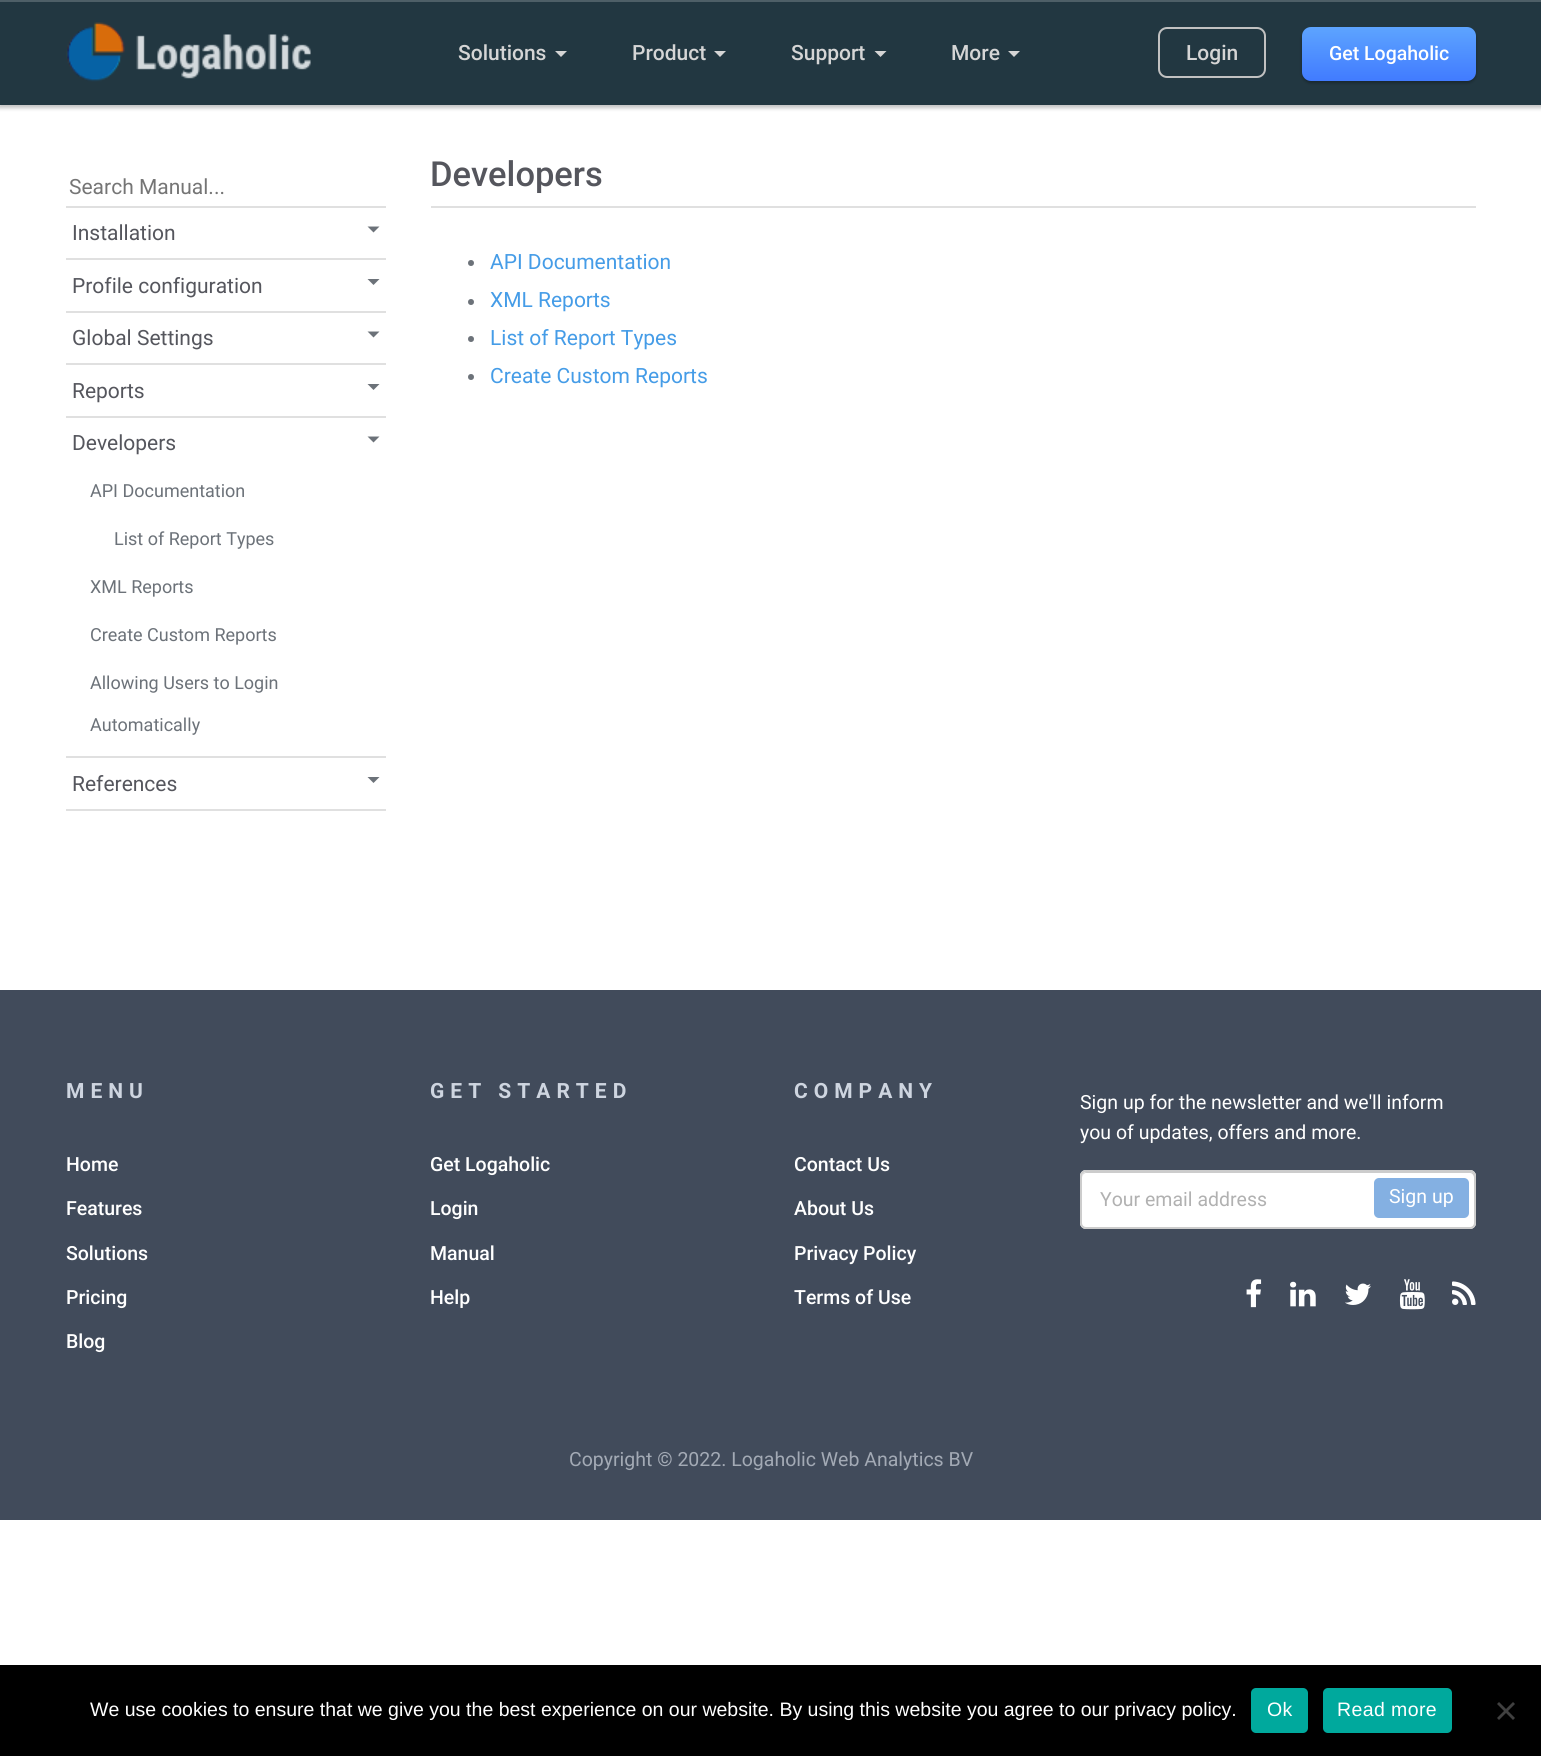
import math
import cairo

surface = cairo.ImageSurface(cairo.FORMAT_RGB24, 1541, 1756)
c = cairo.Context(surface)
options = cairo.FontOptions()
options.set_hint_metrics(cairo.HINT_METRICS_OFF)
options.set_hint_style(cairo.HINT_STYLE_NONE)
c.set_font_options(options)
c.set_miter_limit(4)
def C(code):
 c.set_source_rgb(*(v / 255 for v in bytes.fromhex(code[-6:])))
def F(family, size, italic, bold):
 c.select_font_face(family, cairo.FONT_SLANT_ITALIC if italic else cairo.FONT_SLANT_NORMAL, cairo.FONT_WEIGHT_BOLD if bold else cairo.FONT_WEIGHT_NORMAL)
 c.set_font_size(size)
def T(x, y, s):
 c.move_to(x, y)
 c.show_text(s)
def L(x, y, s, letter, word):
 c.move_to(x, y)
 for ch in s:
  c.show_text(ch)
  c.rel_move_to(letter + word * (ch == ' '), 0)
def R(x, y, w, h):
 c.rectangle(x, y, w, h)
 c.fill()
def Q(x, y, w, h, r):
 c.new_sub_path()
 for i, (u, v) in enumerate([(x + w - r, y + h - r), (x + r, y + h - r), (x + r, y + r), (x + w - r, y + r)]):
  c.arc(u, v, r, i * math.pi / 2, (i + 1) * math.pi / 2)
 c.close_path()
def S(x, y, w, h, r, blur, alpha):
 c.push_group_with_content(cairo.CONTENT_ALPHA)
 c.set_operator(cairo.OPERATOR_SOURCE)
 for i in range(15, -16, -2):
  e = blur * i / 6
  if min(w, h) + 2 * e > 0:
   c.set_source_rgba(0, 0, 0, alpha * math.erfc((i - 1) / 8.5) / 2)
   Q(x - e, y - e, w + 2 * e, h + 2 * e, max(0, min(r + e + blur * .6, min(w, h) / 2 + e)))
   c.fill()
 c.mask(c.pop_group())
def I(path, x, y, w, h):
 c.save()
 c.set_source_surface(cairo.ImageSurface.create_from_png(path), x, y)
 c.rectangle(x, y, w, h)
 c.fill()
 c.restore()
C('ffffff')
c.paint()
C('2e2e2e')
S(-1,0,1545,108,0,2,.3)
C('223741')
R(0,2,1541,103)
C('4e5f67')
R(0,0,1541,2)
I('1.png',66,22,245,60)
F('Roboto Medium',21,0,0)
C('d5d5d5')
T(458,60,'Solutions')
c.new_path()
c.move_to(555,51)
c.line_to(567,51)
c.line_to(561,57)
c.close_path()
c.fill()
T(632,60,'Product')
c.new_path()
c.move_to(714,51)
c.line_to(726,51)
c.line_to(720,57)
c.close_path()
c.fill()
T(791,60,'Support')
c.new_path()
c.move_to(874.5,51)
c.line_to(886.5,51)
c.line_to(880.5,57)
c.close_path()
c.fill()
T(951,60,'More')
c.new_path()
c.move_to(1008,51)
c.line_to(1020,51)
c.line_to(1014,57)
c.close_path()
c.fill()
Q(1159,28,106,49,8)
C('c1c1c1')
c.stroke()
C('d5d5d5')
T(1186,60,'Login')
C('000000')
S(1302,29,174,54,9,1.5,.3)
gradient = cairo.LinearGradient(1389,27,1389,81)
gradient.add_color_stop_rgba(0,0.365,0.643,1,1)
gradient.add_color_stop_rgba(1,0.255,0.482,1,1)
c.set_source(gradient)
Q(1302,27,174,54,9)
c.fill()
F('Roboto Medium',19.5,0,0)
C('ffffff')
T(1329,60,'Get Logaholic')
F('Roboto',21,0,0)
C('757575')
T(69,194,'Search Manual...')
C('e0e0e0')
R(66,206,320,2)
R(66,258,320,2)
C('55565d')
T(72,240,'Installation')
C('6c7279')
c.new_path()
c.move_to(367.5,226.5)
c.line_to(379.5,226.5)
c.line_to(373.5,232.5)
c.close_path()
c.move_to(367.5,279)
c.line_to(379.5,279)
c.line_to(373.5,285)
c.close_path()
c.fill()
C('e0e0e0')
R(66,311,320,2)
C('55565d')
T(72,293,'Profile configuration')
C('e0e0e0')
R(66,363,320,2)
C('55565d')
T(72,345,'Global Settings')
C('6c7279')
c.new_path()
c.move_to(367.5,331.5)
c.line_to(379.5,331.5)
c.line_to(373.5,337.5)
c.close_path()
c.move_to(367.5,384)
c.line_to(379.5,384)
c.line_to(373.5,390)
c.close_path()
c.fill()
C('e0e0e0')
R(66,416,320,2)
C('55565d')
T(72,398,'Reports')
C('e0e0e0')
R(66,756,320,2)
C('55565d')
T(72,450,'Developers')
C('6c7279')
c.new_path()
c.move_to(367.5,436.5)
c.line_to(379.5,436.5)
c.line_to(373.5,442.5)
c.close_path()
c.fill()
F('Roboto',18,0,0)
T(90,497,'API Documentation')
T(114,545,'List of Report Types')
T(90,593,'XML Reports')
T(90,641,'Create Custom Reports')
T(90,689,'Allowing Users to Login')
T(90,731,'Automatically')
C('e0e0e0')
R(66,809,320,2)
F('Roboto',21,0,0)
C('55565d')
T(72,791,'References')
C('6c7279')
c.new_path()
c.move_to(367.5,777)
c.line_to(379.5,777)
c.line_to(373.5,783)
c.close_path()
c.fill()
C('e0e0e0')
R(431,206,1045,2)
F('Roboto Medium',34.5,0,0)
C('55565d')
T(430,186,'Developers')
C('6c7279')
c.new_path()
c.arc(471,263,3,0,2 * math.pi)
c.fill()
F('Roboto',21,0,0)
C('459ce7')
T(490,269,'API Documentation')
C('6c7279')
c.new_path()
c.arc(471,302,3,0,2 * math.pi)
c.fill()
C('459ce7')
T(490,307,'XML Reports')
C('6c7279')
c.new_path()
c.arc(471,339,3,0,2 * math.pi)
c.fill()
C('459ce7')
T(490,345,'List of Report Types')
C('6c7279')
c.new_path()
c.arc(471,377,3,0,2 * math.pi)
c.fill()
C('459ce7')
T(490,383,'Create Custom Reports')
C('414b5b')
R(0,990,1541,530)
F('Roboto',21,0,1)
C('ced5e0')
L(66,1098,'MENU',6,0)
F('Roboto Medium',19.5,0,0)
C('ffffff')
T(66,1171,'Home')
T(66,1215,'Features')
T(66,1260,'Solutions')
T(66,1304,'Pricing')
T(66,1348,'Blog')
F('Roboto',21,0,1)
C('ced5e0')
L(430,1098,'GET STARTED',6,0)
F('Roboto Medium',19.5,0,0)
C('ffffff')
T(430,1171,'Get Logaholic')
T(430,1215,'Login')
T(430,1260,'Manual')
T(430,1304,'Help')
F('Roboto',21,0,1)
C('ced5e0')
L(794,1098,'COMPANY',6,0)
F('Roboto Medium',19.5,0,0)
C('ffffff')
T(794,1171,'Contact Us')
T(794,1215,'About Us')
T(794,1260,'Privacy Policy')
T(794,1304,'Terms of Use')
F('Roboto',19.5,0,0)
T(1080,1109,'Sign up for the newsletter and we\'ll inform')
T(1080,1139,'you of updates, offers and more.')
Q(1080,1170,396,59,6)
c.fill()
C('cccccc')
c.new_path()
c.move_to(1086,1173)
c.line_to(1470,1173)
c.curve_to(1472,1173,1474,1175,1474,1178)
c.line_to(1474,1225)
c.curve_to(1475,1224,1475,1223,1475,1222)
c.line_to(1475,1177)
c.curve_to(1475,1174,1473,1172,1470,1172)
c.line_to(1087,1172)
c.curve_to(1084,1172,1082,1174,1082,1177)
c.line_to(1082,1178)
c.curve_to(1082,1175,1084,1173,1086,1173)
c.close_path()
c.fill()
Q(1081,1171,394,57,5)
c.stroke()
C('b1b1b1')
T(1100,1206,'Your email address')
C('84b0e2')
Q(1374,1178,95,40,5)
c.fill()
C('ffffff')
T(1389,1203,'Sign up')
I('2.png',1246,1279,16,29)
I('3.png',1290,1281,26,26)
I('4.png',1345,1283,26,22)
I('5.png',1399,1279,26,31)
I('6.png',1452,1281,24,24)
C('a3aab5')
T(569,1466,'Copyright © 2022. Logaholic Web Analytics BV')
C('000000')
R(0,1665,1541,91)
F('Liberation Sans',19.5,0,0)
C('ffffff')
T(90,1716,'We use cookies to ensure that we give you the best experience on our website. By using this website you agree to our privacy policy.')
C('00a99d')
Q(1251,1688,57,45,5)
c.fill()
C('ffffff')
L(1267,1716,'Ok',.4,0)
C('00a99d')
Q(1323,1688,129,45,5)
c.fill()
C('ffffff')
L(1337,1716,'Read more',.4,0)
C('404040')
c.new_path()
c.move_to(1513,1702)
c.line_to(1515,1704)
c.line_to(1499,1720)
c.line_to(1497,1718)
c.close_path()
c.fill()
c.new_path()
c.move_to(1497,1704)
c.line_to(1499,1702)
c.line_to(1515,1718)
c.line_to(1513,1720)
c.close_path()
c.fill()
surface.write_to_png('o.png')
